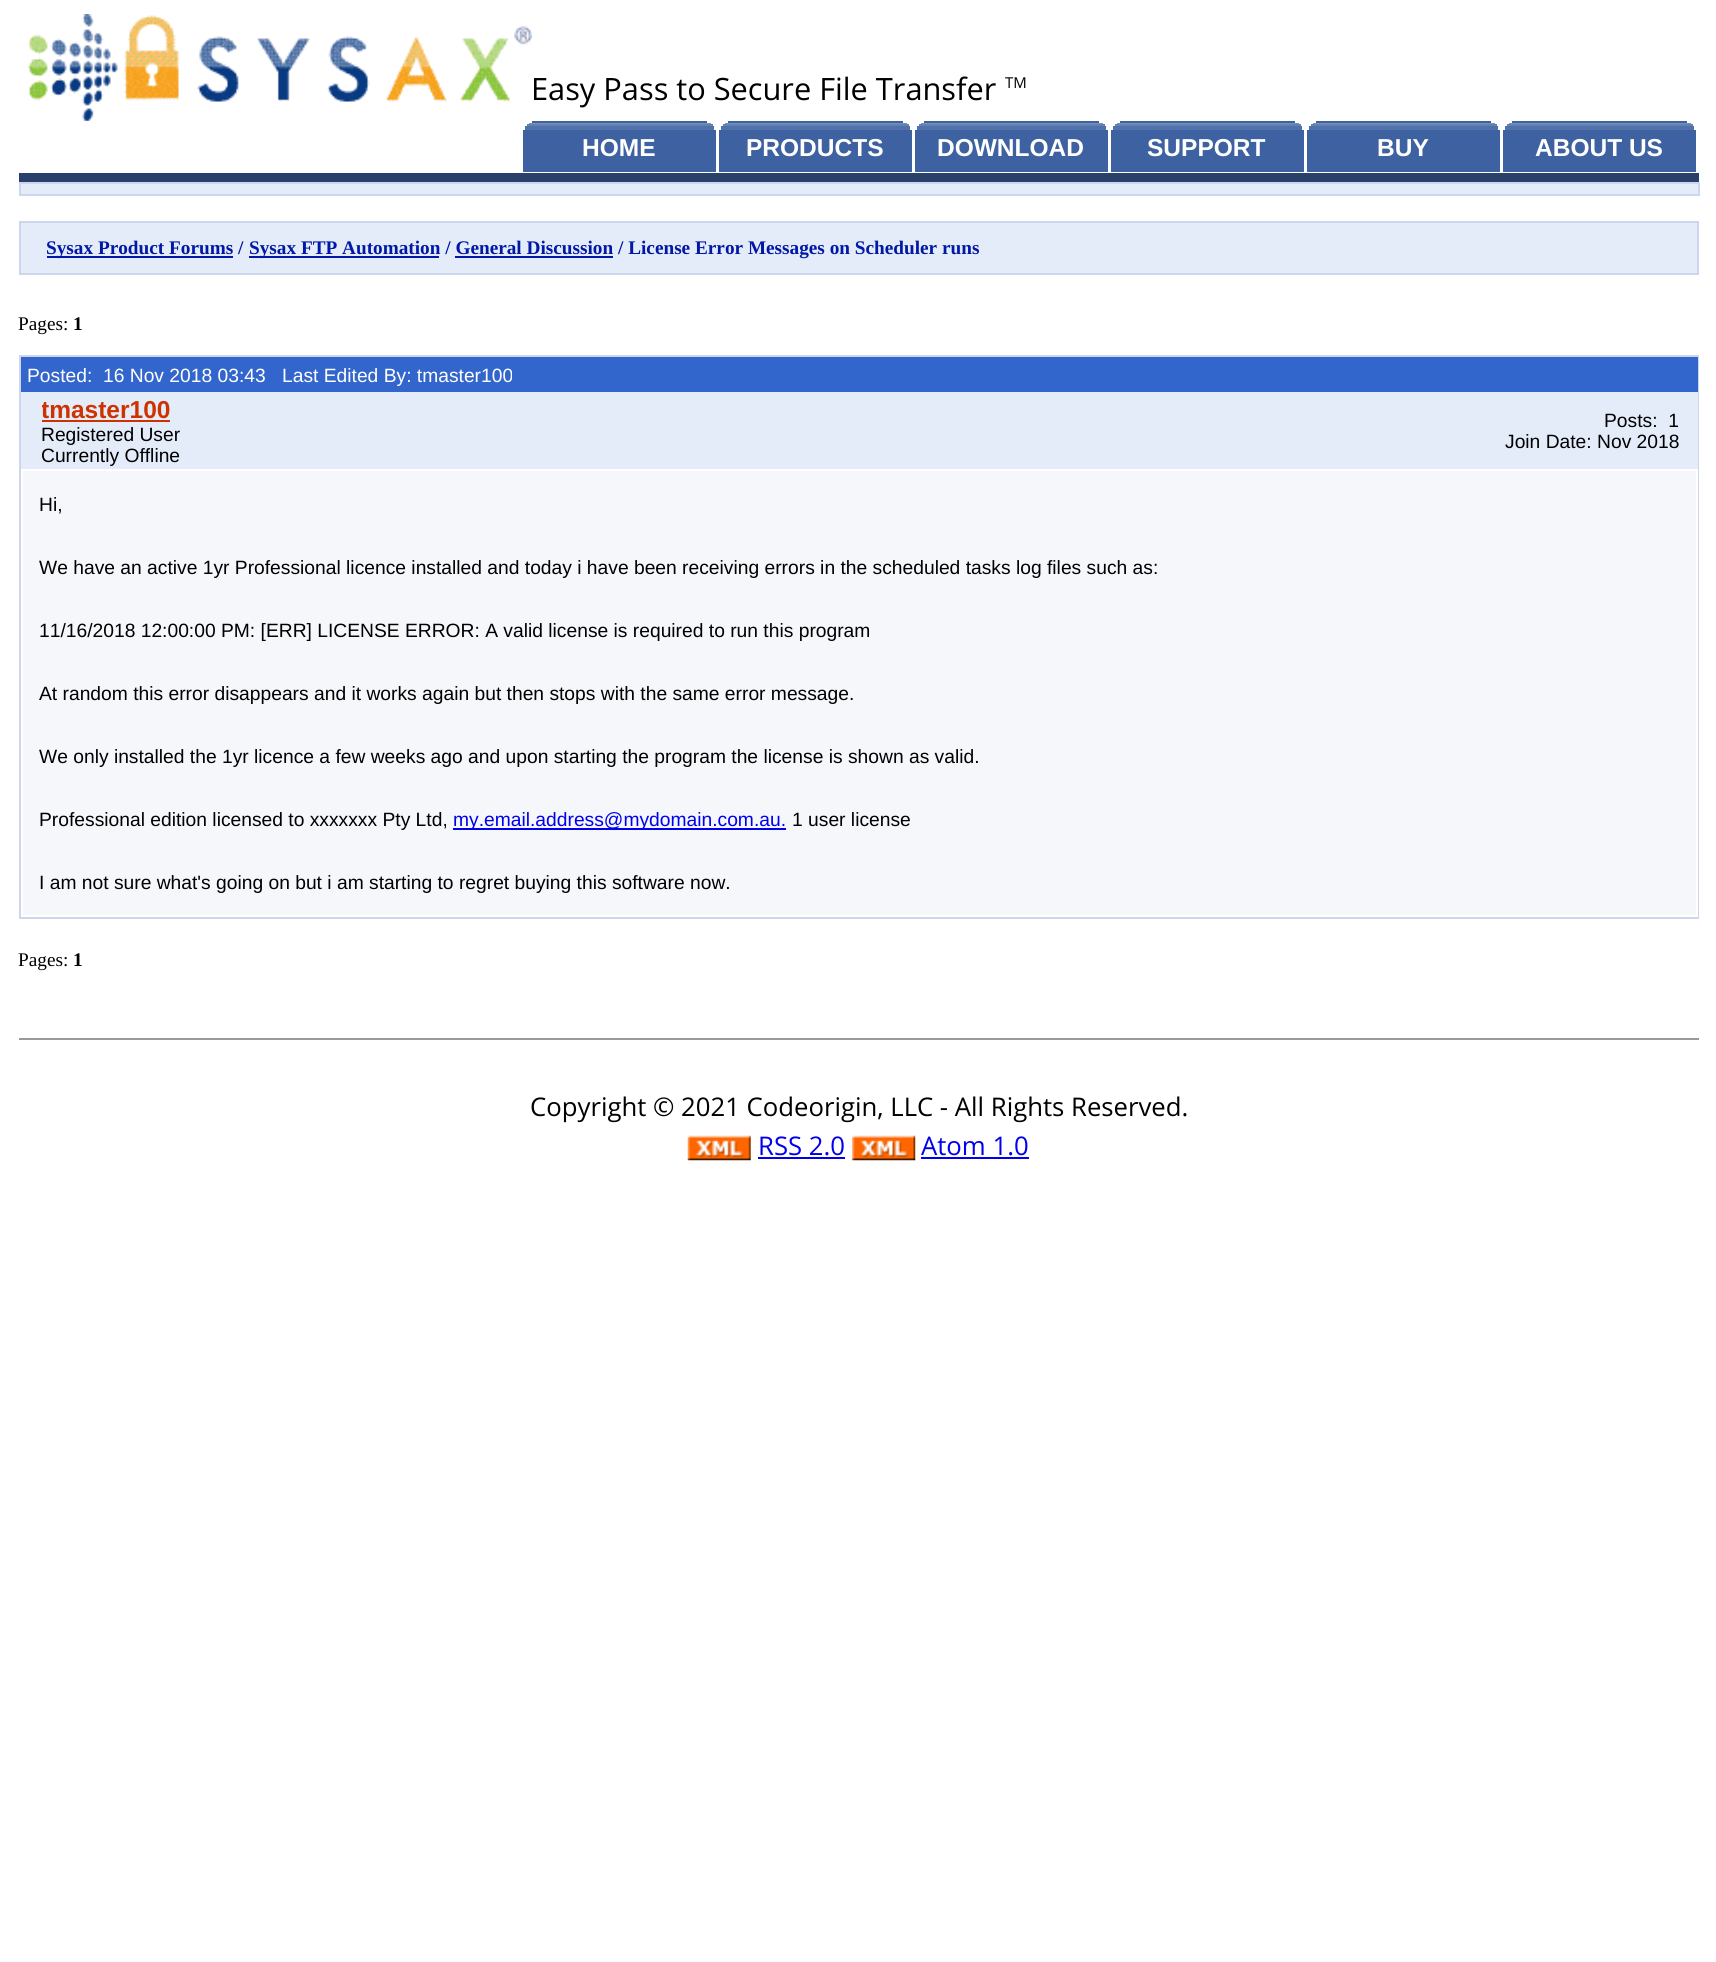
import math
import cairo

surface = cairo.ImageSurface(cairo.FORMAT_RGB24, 1716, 1962)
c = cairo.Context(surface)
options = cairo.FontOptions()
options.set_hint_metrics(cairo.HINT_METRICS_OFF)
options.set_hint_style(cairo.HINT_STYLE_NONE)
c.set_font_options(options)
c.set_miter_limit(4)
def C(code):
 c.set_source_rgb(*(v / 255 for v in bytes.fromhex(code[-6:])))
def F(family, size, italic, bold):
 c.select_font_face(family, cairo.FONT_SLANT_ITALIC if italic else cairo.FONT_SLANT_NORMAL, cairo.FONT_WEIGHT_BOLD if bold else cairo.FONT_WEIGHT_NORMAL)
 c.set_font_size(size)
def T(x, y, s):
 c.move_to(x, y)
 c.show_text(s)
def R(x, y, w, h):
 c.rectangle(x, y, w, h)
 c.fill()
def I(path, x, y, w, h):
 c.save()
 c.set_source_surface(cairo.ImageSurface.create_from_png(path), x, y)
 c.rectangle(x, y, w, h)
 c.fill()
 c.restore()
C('ffffff')
c.paint()
I('1.png',27,14,505,107)
F('Open Sans',30.75,0,0)
C('000000')
T(531,100,'Easy Pass to Secure File Transfer')
F('Open Sans',15,0,0)
T(1005,88,'TM')
C('29406a')
R(19,173,1680,9)
C('3e62a1')
R(532,121,175,2)
C('7791bd')
R(529,123,182,1)
C('6481b3')
R(527,124,186,2)
C('5171aa')
R(525,126,189,4)
C('3e62a1')
R(523,130,193,42)
F('Liberation Sans',24.5,0,1)
C('ffffff')
T(582,156,'HOME')
C('3e62a1')
R(728,121,175,2)
C('7791bd')
R(725,123,182,1)
C('6481b3')
R(723,124,186,2)
C('5171aa')
R(721,126,189,4)
C('3e62a1')
R(719,130,193,42)
C('ffffff')
T(746,156,'PRODUCTS')
C('3e62a1')
R(924,121,175,2)
C('7791bd')
R(921,123,182,1)
C('6481b3')
R(919,124,186,2)
C('5171aa')
R(917,126,189,4)
C('3e62a1')
R(915,130,193,42)
C('ffffff')
T(937,156,'DOWNLOAD')
C('3e62a1')
R(1120,121,175,2)
C('7791bd')
R(1117,123,182,1)
C('6481b3')
R(1115,124,186,2)
C('5171aa')
R(1113,126,189,4)
C('3e62a1')
R(1111,130,193,42)
C('ffffff')
T(1147,156,'SUPPORT')
C('3e62a1')
R(1316,121,175,2)
C('7791bd')
R(1313,123,182,1)
C('6481b3')
R(1311,124,186,2)
C('5171aa')
R(1309,126,189,4)
C('3e62a1')
R(1307,130,193,42)
C('ffffff')
T(1377,156,'BUY')
C('3e62a1')
R(1512,121,175,2)
C('7791bd')
R(1509,123,182,1)
C('6481b3')
R(1507,124,186,2)
C('5171aa')
R(1505,126,189,4)
C('3e62a1')
R(1503,130,193,42)
C('ffffff')
T(1535,156,'ABOUT US')
C('e5ecf9')
R(21,184,1677,10)
C('ccd7ed')
R(19,182,1680,2)
R(1698,182,2,14)
R(19,194,1680,2)
R(19,182,2,14)
C('e5ecf9')
c.rectangle(20,222,1678,52)
c.fill_preserve()
C('ccd7ed')
c.stroke()
C('0018a5')
R(47,256,186,2)
F('Liberation Serif',19.25,0,1)
T(46,254,'Sysax Product Forums /')
R(249,256,190,2)
T(249,254,'Sysax FTP Automation / General Discussion / License Error Messages on Scheduler runs')
R(455,256,158,2)
F('Liberation Serif',19.25,0,0)
C('000000')
T(18,330,'Pages:')
F('Liberation Serif',19.25,0,1)
T(73,330,'1')
c.rectangle(20,356,1678,562)
C('ccd7ed')
c.stroke()
C('3366cc')
R(21,357,1677,35)
F('Liberation Sans',19.25,0,0)
C('ffffff')
T(27,382,'Posted:  16 Nov 2018 03:43')
T(282,382,'Last Edited By: tmaster100')
C('e5ecf9')
R(21,392,1677,77)
c.save()
c.rectangle(42,396,1285,28)
c.clip()
F('Liberation Sans',24.5,0,1)
C('cc3300')
T(41,418,'tmaster100')
c.restore()
C('cc3300')
R(42,420,128,2)
C('000000')
T(41,441,'Registered User')
T(41,462,'Currently Offline')
T(1604,427,'Posts:  1')
T(1505,448,'Join Date: Nov 2018')
C('f5f7fb')
c.rectangle(22,470,1675,446)
c.fill_preserve()
C('ffffff')
c.stroke()
C('000000')
T(39,511,'Hi,')
T(39,574,'We have an active 1yr Professional licence installed and today i have been receiving errors in the scheduled tasks log files such as:')
T(39,637,'11/16/2018 12:00:00 PM: [ERR] LICENSE ERROR: A valid license is required to run this program')
T(39,700,'At random this error disappears and it works again but then stops with the same error message.')
T(39,763,'We only installed the 1yr licence a few weeks ago and upon starting the program the license is shown as valid.')
T(39,826,'Professional edition licensed to xxxxxxx Pty Ltd,')
C('0000ee')
R(453,828,333,2)
T(453,826,'my.email.address@mydomain.com.au.')
C('000000')
T(792,826,'1 user license')
T(39,889,'I am not sure what\'s going on but i am starting to regret buying this software now.')
F('Liberation Serif',19.25,0,0)
T(18,966,'Pages:')
F('Liberation Serif',19.25,0,1)
T(73,966,'1')
C('999999')
R(19,1038,1680,2)
F('Open Sans',25.7,0,0)
C('000000')
T(530,1116,'Copyright © 2021 Codeorigin, LLC - All Rights Reserved.')
I('2.png',687,1135,64,26)
C('0000ee')
T(758,1155,'RSS 2.0')
R(758,1157,87,2)
I('3.png',852,1135,64,26)
T(921,1155,'Atom 1.0')
R(921,1157,108,2)
surface.write_to_png('o.png')
